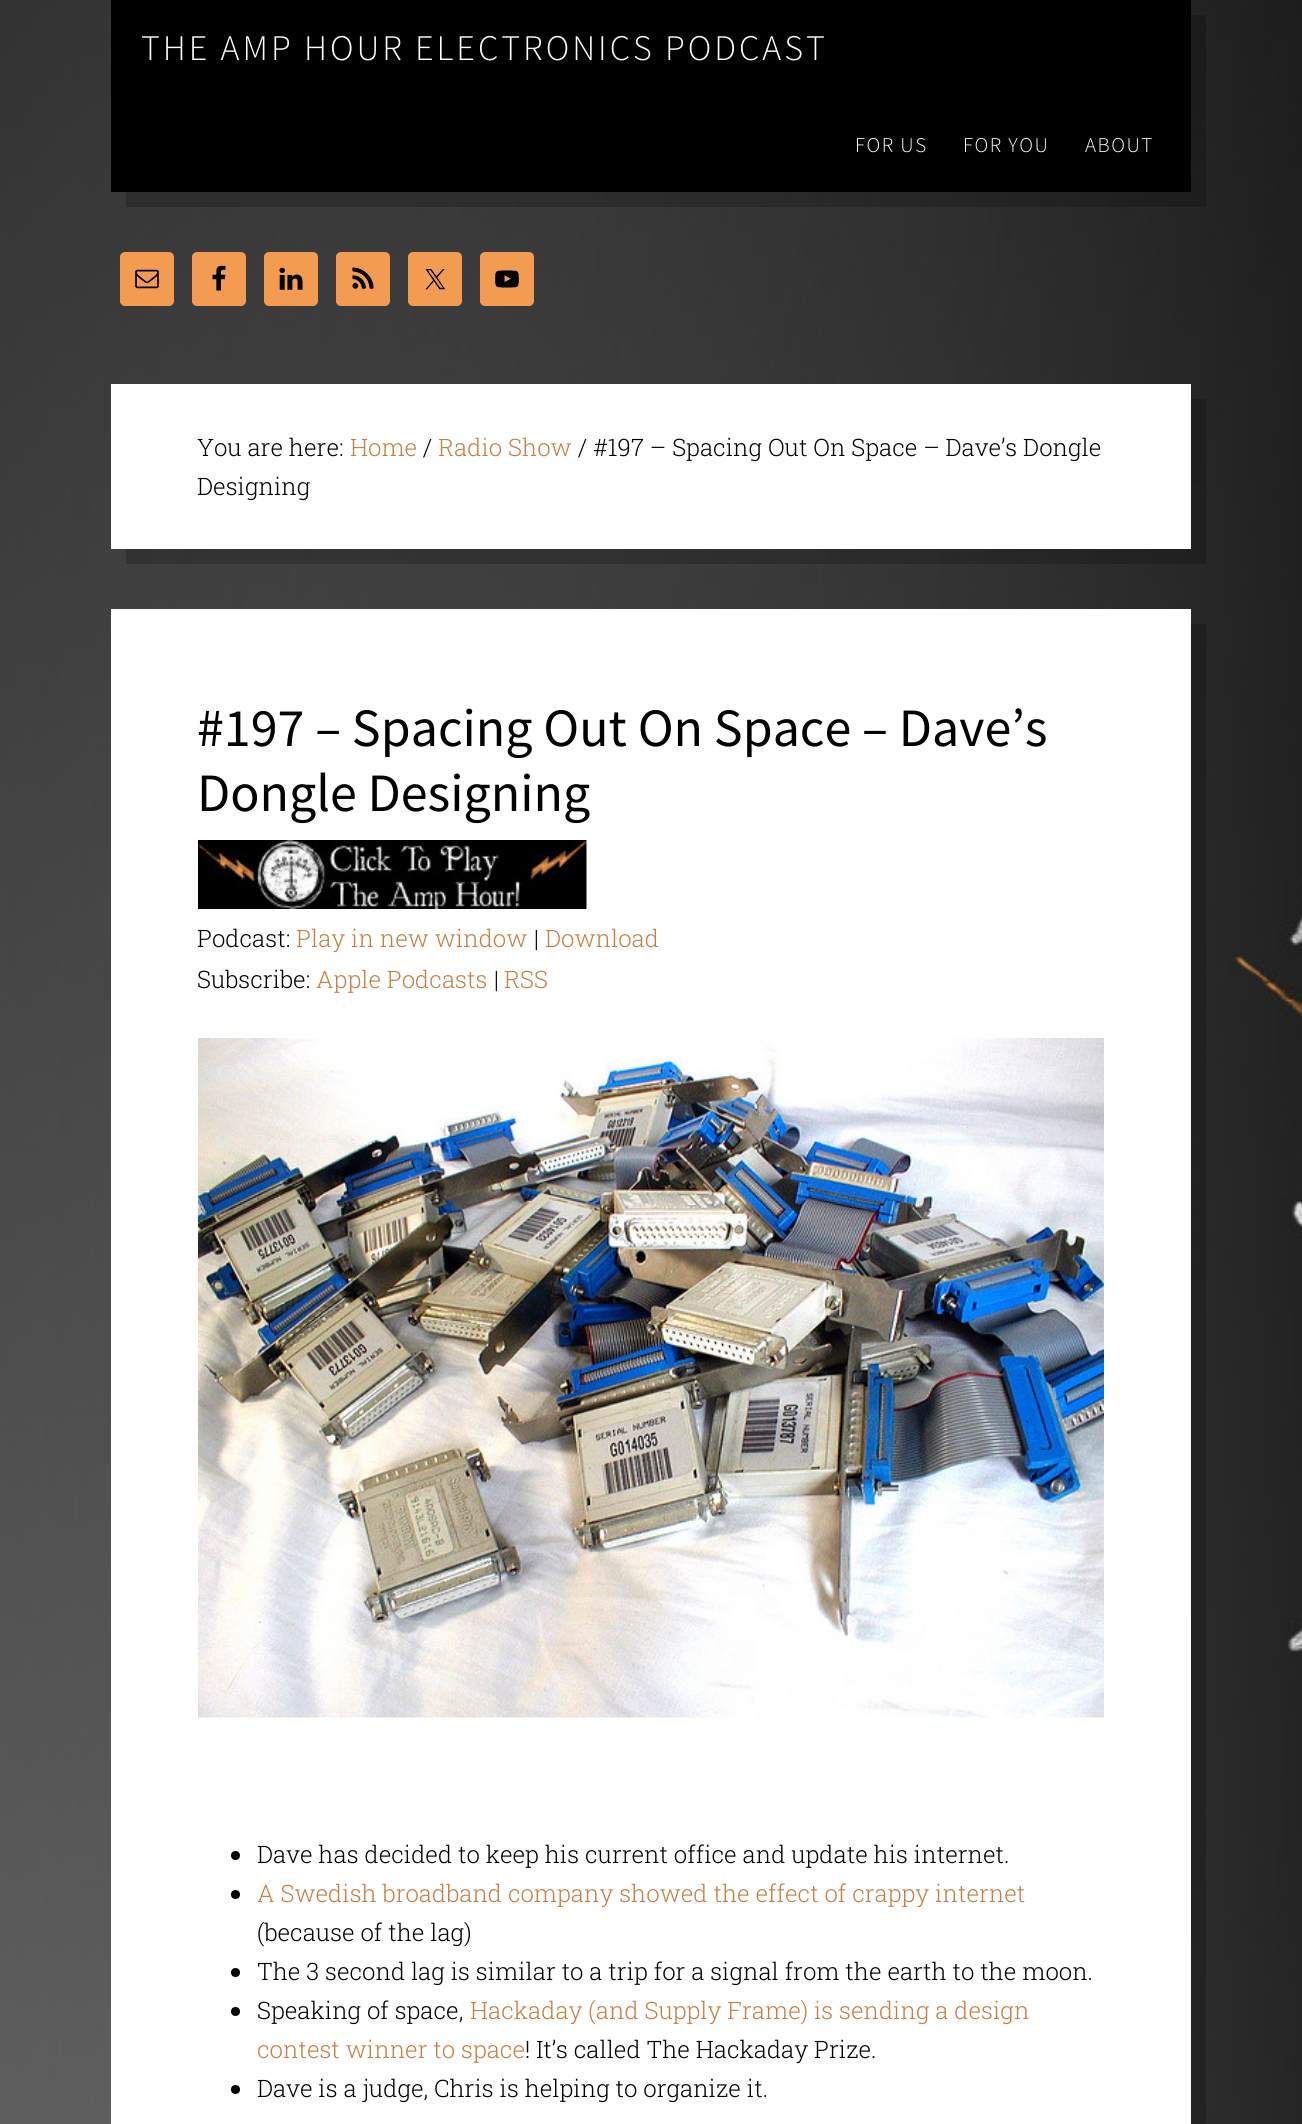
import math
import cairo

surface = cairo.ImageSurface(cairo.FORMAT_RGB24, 1302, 2124)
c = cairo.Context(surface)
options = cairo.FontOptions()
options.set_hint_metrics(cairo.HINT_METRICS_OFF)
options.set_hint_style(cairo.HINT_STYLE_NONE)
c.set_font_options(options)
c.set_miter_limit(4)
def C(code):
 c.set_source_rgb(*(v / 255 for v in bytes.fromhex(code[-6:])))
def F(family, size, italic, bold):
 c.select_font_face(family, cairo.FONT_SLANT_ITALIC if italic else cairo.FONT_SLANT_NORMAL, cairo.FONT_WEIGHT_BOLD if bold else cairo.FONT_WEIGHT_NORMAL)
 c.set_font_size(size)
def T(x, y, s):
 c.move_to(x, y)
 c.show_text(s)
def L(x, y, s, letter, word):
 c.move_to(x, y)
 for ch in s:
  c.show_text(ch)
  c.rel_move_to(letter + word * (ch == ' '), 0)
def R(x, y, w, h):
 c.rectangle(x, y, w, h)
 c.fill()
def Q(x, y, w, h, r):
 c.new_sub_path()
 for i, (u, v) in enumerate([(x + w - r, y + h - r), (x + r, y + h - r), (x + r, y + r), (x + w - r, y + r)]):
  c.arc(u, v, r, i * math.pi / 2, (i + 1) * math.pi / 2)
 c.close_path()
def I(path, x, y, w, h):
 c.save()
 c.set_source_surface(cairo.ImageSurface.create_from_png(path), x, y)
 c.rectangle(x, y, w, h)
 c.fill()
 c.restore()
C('ffffff')
c.paint()
I('1.png',0,0,1302,2124)
c.set_source_rgba(0,0,0,0.2)
c.new_path()
c.move_to(126,192)
c.line_to(126,207)
c.line_to(1206,207)
c.line_to(1206,15)
c.line_to(1191,15)
c.line_to(1191,192)
c.close_path()
c.fill()
C('000000')
R(111,0,1080,192)
F('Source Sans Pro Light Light',36,0,0)
C('ffffff')
L(141,60,'THE AMP HOUR ELECTRONICS PODCAST',3,0)
F('Source Sans Pro Light Light',21,0,0)
L(855,152,'FOR US',1.5,0)
L(963,152,'FOR YOU',1.5,0)
L(1085,152,'ABOUT',1.5,0)
C('f39c51')
Q(120,252,54,54,5)
c.fill()
I('2.png',135,269,24,20)
Q(192,252,54,54,5)
c.fill()
I('3.png',212,265,14,26)
Q(264,252,54,54,5)
c.fill()
I('4.png',279,267,24,23)
Q(336,252,54,54,5)
c.fill()
I('5.png',352,267,22,22)
Q(408,252,54,54,5)
c.fill()
I('6.png',425,269,21,21)
Q(480,252,54,54,5)
c.fill()
I('7.png',495,270,24,18)
c.set_source_rgba(0,0,0,0.2)
c.new_path()
c.move_to(126,549)
c.line_to(126,564)
c.line_to(1206,564)
c.line_to(1206,399)
c.line_to(1191,399)
c.line_to(1191,549)
c.close_path()
c.fill()
C('ffffff')
R(111,384,1080,165)
F('Roboto Slab Light',24,0,0)
C('000000')
T(197,456,'You are here:')
C('c57f42')
T(350,456,'Home')
C('000000')
T(423,456,'/')
C('c57f42')
T(438,456,'Radio Show')
C('000000')
T(578,456,'/ #197 – Spacing Out On Space – Dave’s Dongle')
T(197,495,'Designing')
c.set_source_rgba(0,0,0,0.2)
c.new_path()
c.move_to(126,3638)
c.line_to(126,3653)
c.line_to(1206,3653)
c.line_to(1206,624)
c.line_to(1191,624)
c.line_to(1191,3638)
c.close_path()
c.fill()
C('ffffff')
R(111,609,1080,1515)
F('Source Sans Pro',54,0,0)
C('000000')
T(197,746,'#197 – Spacing Out On Space – Dave’s')
T(197,811,'Dongle Designing')
I('8.png',198,840,389,69)
F('Roboto Slab Light',24,0,0)
T(197,947,'Podcast:')
C('c57f42')
T(296,947,'Play in new window')
C('000000')
T(534,947,'|')
C('c57f42')
T(545,947,'Download')
C('000000')
T(197,988,'Subscribe:')
C('c57f42')
T(316,988,'Apple Podcasts')
C('000000')
T(494,988,'|')
C('c57f42')
T(504,988,'RSS')
I('9.png',198,1038,906,680)
C('000000')
c.arc(235.5,1855.5,4.5,0,2 * math.pi)
c.fill()
T(257,1863,'Dave has decided to keep his current office and update his internet.')
c.new_path()
c.arc(235.5,1894.5,4.5,0,2 * math.pi)
c.fill()
C('c57f42')
T(257,1902,'A Swedish broadband company showed the effect of crappy internet')
C('000000')
T(257,1941,'(because of the lag)')
c.new_path()
c.arc(235.5,1972.5,4.5,0,2 * math.pi)
c.fill()
T(257,1980,'The 3 second lag is similar to a trip for a signal from the earth to the moon.')
c.new_path()
c.arc(235.5,2011.5,4.5,0,2 * math.pi)
c.fill()
T(257,2019,'Speaking of space,')
C('c57f42')
T(470,2019,'Hackaday (and Supply Frame) is sending a design')
T(257,2058,'contest winner to space')
C('000000')
T(525,2058,'! It’s called The Hackaday Prize.')
c.new_path()
c.arc(235.5,2089.5,4.5,0,2 * math.pi)
c.fill()
T(257,2097,'Dave is a judge, Chris is helping to organize it.')
surface.write_to_png('o.png')
